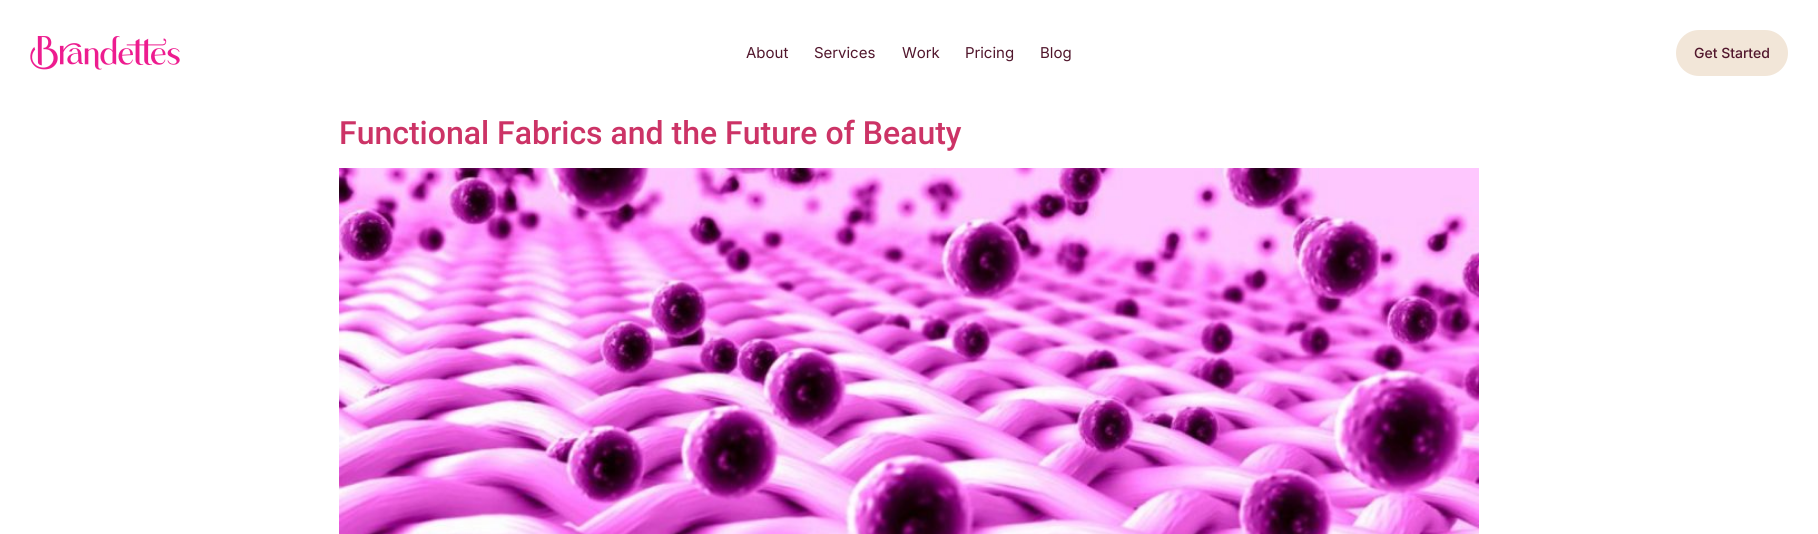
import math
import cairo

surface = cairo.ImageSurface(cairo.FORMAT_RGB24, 1818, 534)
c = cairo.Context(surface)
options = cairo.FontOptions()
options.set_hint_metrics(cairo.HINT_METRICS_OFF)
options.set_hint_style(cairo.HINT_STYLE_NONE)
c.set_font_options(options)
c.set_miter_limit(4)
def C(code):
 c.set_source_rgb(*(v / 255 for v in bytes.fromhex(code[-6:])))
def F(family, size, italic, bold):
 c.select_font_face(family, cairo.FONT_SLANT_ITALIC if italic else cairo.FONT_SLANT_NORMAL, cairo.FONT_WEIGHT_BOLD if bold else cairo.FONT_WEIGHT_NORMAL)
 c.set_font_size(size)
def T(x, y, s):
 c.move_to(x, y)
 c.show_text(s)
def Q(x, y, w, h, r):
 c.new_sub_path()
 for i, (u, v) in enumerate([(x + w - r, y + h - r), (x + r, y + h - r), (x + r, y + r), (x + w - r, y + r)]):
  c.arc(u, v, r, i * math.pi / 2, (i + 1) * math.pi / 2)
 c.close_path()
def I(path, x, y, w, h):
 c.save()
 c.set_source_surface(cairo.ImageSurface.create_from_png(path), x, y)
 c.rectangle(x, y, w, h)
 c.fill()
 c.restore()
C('ffffff')
c.paint()
I('1.png',30,36,150,34)
F('Inter',15,0,0)
C('51162c')
T(746,58,'About')
T(814,58,'Services')
T(902,58,'Work')
T(965,58,'Pricing')
T(1040,58,'Blog')
C('f2e6d8')
Q(1676,30,112,46,23)
c.fill()
F('Inter Medium',14,0,0)
C('51162c')
T(1694,58,'Get Started')
F('Roboto Medium',32,0,0)
C('cc3366')
T(339,144,'Functional Fabrics and the Future of Beauty')
I('2.png',339,168,1140,366)
surface.write_to_png('o.png')
